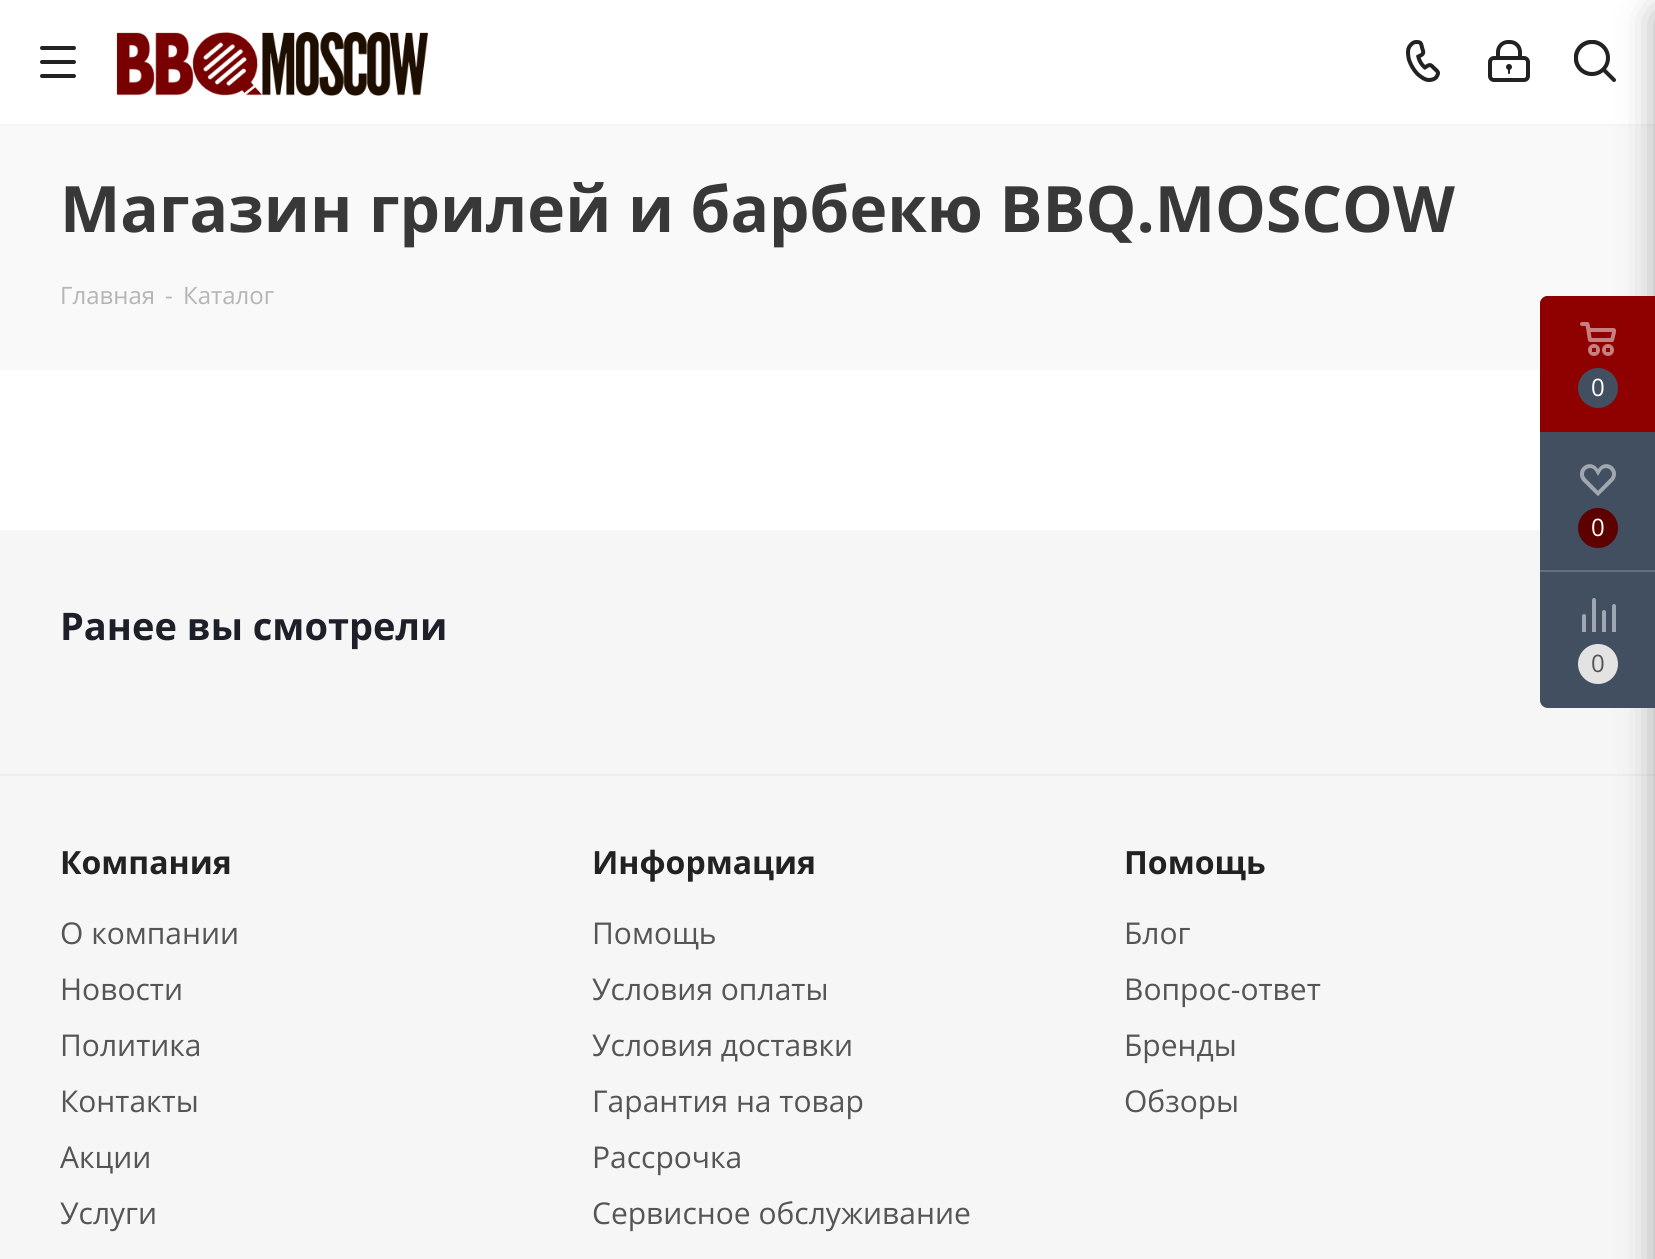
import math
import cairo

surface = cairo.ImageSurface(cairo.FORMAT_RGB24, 1655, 1259)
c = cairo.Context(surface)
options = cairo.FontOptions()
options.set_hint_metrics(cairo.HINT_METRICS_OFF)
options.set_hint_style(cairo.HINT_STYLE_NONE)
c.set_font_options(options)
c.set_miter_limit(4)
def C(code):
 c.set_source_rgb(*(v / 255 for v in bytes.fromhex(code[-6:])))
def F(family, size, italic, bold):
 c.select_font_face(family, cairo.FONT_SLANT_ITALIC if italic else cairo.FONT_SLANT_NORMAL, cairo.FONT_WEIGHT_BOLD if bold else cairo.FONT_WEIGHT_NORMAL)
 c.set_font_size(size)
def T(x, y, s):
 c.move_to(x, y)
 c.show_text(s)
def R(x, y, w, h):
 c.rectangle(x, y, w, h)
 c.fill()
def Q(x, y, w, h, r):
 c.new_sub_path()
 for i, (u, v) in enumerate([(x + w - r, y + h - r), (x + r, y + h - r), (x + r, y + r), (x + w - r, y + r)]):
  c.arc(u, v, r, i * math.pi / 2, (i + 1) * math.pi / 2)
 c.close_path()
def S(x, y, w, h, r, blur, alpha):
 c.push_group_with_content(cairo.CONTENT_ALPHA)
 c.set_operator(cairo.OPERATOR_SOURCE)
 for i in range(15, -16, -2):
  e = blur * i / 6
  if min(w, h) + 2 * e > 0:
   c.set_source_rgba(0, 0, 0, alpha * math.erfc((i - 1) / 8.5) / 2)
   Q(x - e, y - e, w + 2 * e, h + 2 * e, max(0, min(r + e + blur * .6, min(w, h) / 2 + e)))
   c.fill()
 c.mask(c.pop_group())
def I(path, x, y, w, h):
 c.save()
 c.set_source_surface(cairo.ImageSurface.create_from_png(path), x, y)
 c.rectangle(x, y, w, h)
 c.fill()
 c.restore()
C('ffffff')
c.paint()
C('f5f5f5')
R(0,124,1655,2)
I('1.png',40,46,36,32)
I('2.png',116,32,312,64)
I('3.png',1406,40,34,42)
I('4.png',1488,40,42,42)
I('5.png',1574,40,42,42)
C('f9f9f9')
R(0,126,1655,244)
F('Open Sans',64,0,1)
C('383838')
T(60,232,'Магазин грилей и барбекю BBQ.MOSCOW')
F('Open Sans',24,0,0)
C('b6b5b5')
T(60,304,'Главная')
T(165,304,'-')
T(183,304,'Каталог')
C('f6f6f7')
R(0,530,1655,244)
C('eeeeee')
R(0,774,1655,2)
C('f6f6f7')
R(0,776,1655,483)
C('2c2c2c')
S(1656,12,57,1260,4,18,.4)
C('424f60')
c.new_path()
c.move_to(1548,296)
c.line_to(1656,296)
c.line_to(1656,708)
c.line_to(1548,708)
c.curve_to(1543.5,708,1540,704.5,1540,700)
c.line_to(1540,304)
c.curve_to(1540,299.5,1543.5,296,1548,296)
c.close_path()
c.fill()
C('8f0000')
c.new_path()
c.move_to(1548,296)
c.line_to(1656,296)
c.line_to(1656,432)
c.line_to(1540,432)
c.line_to(1540,304)
c.curve_to(1540,299.5,1543.5,296,1548,296)
c.close_path()
c.fill()
I('6.png',1580,322,36,34)
C('424f60')
c.arc(1598,388,20,0,2 * math.pi)
c.fill()
C('ffffff')
T(1591,396,'0')
I('7.png',1580,464,36,32)
C('5c0000')
c.arc(1598,528,20,0,2 * math.pi)
c.fill()
C('ffffff')
T(1591,536,'0')
C('636f7d')
R(1540,570,115,2)
I('8.png',1582,598,34,34)
C('e3e3e3')
c.arc(1598,664,20,0,2 * math.pi)
c.fill()
C('555555')
T(1591,672,'0')
F('Open Sans',38,0,1)
C('1d2029')
T(60,640,'Ранее вы смотрели')
F('Open Sans',32,0,1)
C('222222')
T(60,874,'Компания')
F('Open Sans',30,0,0)
C('555555')
T(60,944,'О компании')
T(60,1000,'Новости')
T(60,1056,'Политика')
T(60,1112,'Контакты')
T(60,1168,'Акции')
T(60,1224,'Услуги')
F('Open Sans',32,0,1)
C('222222')
T(592,874,'Информация')
F('Open Sans',30,0,0)
C('555555')
T(592,944,'Помощь')
T(592,1000,'Условия оплаты')
T(592,1056,'Условия доставки')
T(592,1112,'Гарантия на товар')
T(592,1168,'Рассрочка')
T(592,1224,'Сервисное обслуживание')
F('Open Sans',32,0,1)
C('222222')
T(1124,874,'Помощь')
F('Open Sans',30,0,0)
C('555555')
T(1124,944,'Блог')
T(1124,1000,'Вопрос-ответ')
T(1124,1056,'Бренды')
T(1124,1112,'Обзоры')
surface.write_to_png('o.png')
